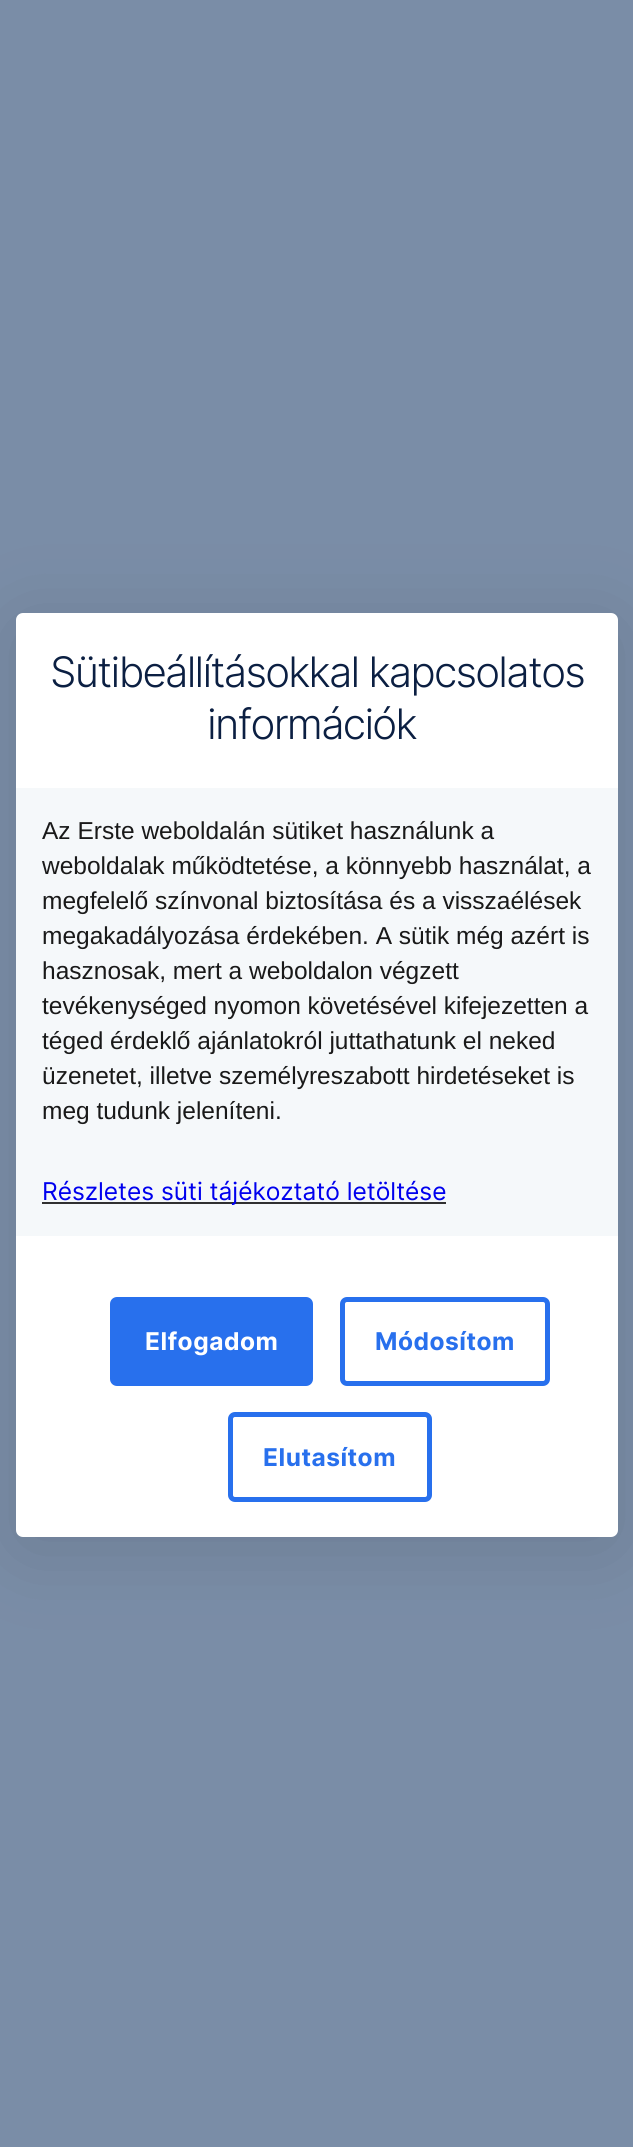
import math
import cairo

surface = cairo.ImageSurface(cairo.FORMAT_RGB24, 633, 2147)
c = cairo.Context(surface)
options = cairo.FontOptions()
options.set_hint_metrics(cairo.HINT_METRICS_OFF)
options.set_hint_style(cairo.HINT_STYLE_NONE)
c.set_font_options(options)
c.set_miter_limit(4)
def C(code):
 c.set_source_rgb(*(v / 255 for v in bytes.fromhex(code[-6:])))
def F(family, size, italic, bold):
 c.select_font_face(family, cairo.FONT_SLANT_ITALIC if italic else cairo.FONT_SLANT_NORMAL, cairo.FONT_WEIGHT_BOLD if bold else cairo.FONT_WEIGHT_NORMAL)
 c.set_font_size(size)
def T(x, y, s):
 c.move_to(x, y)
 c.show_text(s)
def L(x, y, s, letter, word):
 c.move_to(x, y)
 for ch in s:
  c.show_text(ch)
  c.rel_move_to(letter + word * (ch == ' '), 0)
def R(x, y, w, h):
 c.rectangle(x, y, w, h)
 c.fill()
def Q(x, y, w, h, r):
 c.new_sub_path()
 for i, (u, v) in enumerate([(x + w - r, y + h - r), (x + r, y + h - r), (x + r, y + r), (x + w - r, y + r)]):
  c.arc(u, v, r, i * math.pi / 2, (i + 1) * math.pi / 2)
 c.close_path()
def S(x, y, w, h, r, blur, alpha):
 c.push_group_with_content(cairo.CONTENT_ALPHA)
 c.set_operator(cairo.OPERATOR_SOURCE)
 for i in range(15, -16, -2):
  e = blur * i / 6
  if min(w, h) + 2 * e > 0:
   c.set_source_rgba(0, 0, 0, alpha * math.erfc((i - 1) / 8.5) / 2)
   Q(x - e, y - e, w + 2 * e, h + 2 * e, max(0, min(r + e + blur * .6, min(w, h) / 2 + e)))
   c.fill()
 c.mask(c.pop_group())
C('7a8da7')
c.paint()
C('000000')
S(16,625,602,924,7,44,.12)
C('ffffff')
Q(16,613,602,924,7)
c.fill()
F('Inter Light',42,0,0)
C('0b1f42')
L(50,687,'Sütibeállításokkal kapcsolatos',-1.75,0)
L(207,739,'információk',-1.75,0)
C('f5f8fa')
R(16,788,602,448)
F('Liberation Sans',24.5,0,0)
C('191919')
T(42,839,'Az Erste weboldalán sütiket használunk a')
T(42,874,'weboldalak működtetése, a könnyebb használat, a')
T(42,909,'megfelelő színvonal biztosítása és a visszaélések')
T(42,944,'megakadályozása érdekében. A sütik még azért is')
T(42,979,'hasznosak, mert a weboldalon végzett')
T(42,1014,'tevékenységed nyomon követésével kifejezetten a')
T(42,1049,'téged érdeklő ajánlatokról juttathatunk el neked')
T(42,1084,'üzenetet, illetve személyreszabott hirdetéseket is')
T(42,1119,'meg tudunk jeleníteni.')
C('303030')
R(42,1202,404,2)
F('Inter',24.5,0,0)
C('0000ee')
T(42,1200,'Részletes süti tájékoztató letöltése')
C('2870ed')
Q(112.5,1299.5,198,84,4.5)
c.fill_preserve()
c.set_line_width(5)
c.stroke()
F('Inter',24.5,0,1)
C('ffffff')
L(145,1350,'Elfogadom',.5,0)
Q(342.5,1299.5,205,84,4.5)
C('2870ed')
c.stroke()
L(375,1350,'Módosítom',.5,0)
Q(230.5,1414.5,199,85,4.5)
c.stroke()
L(263,1466,'Elutasítom',.5,0)
surface.write_to_png('o.png')
